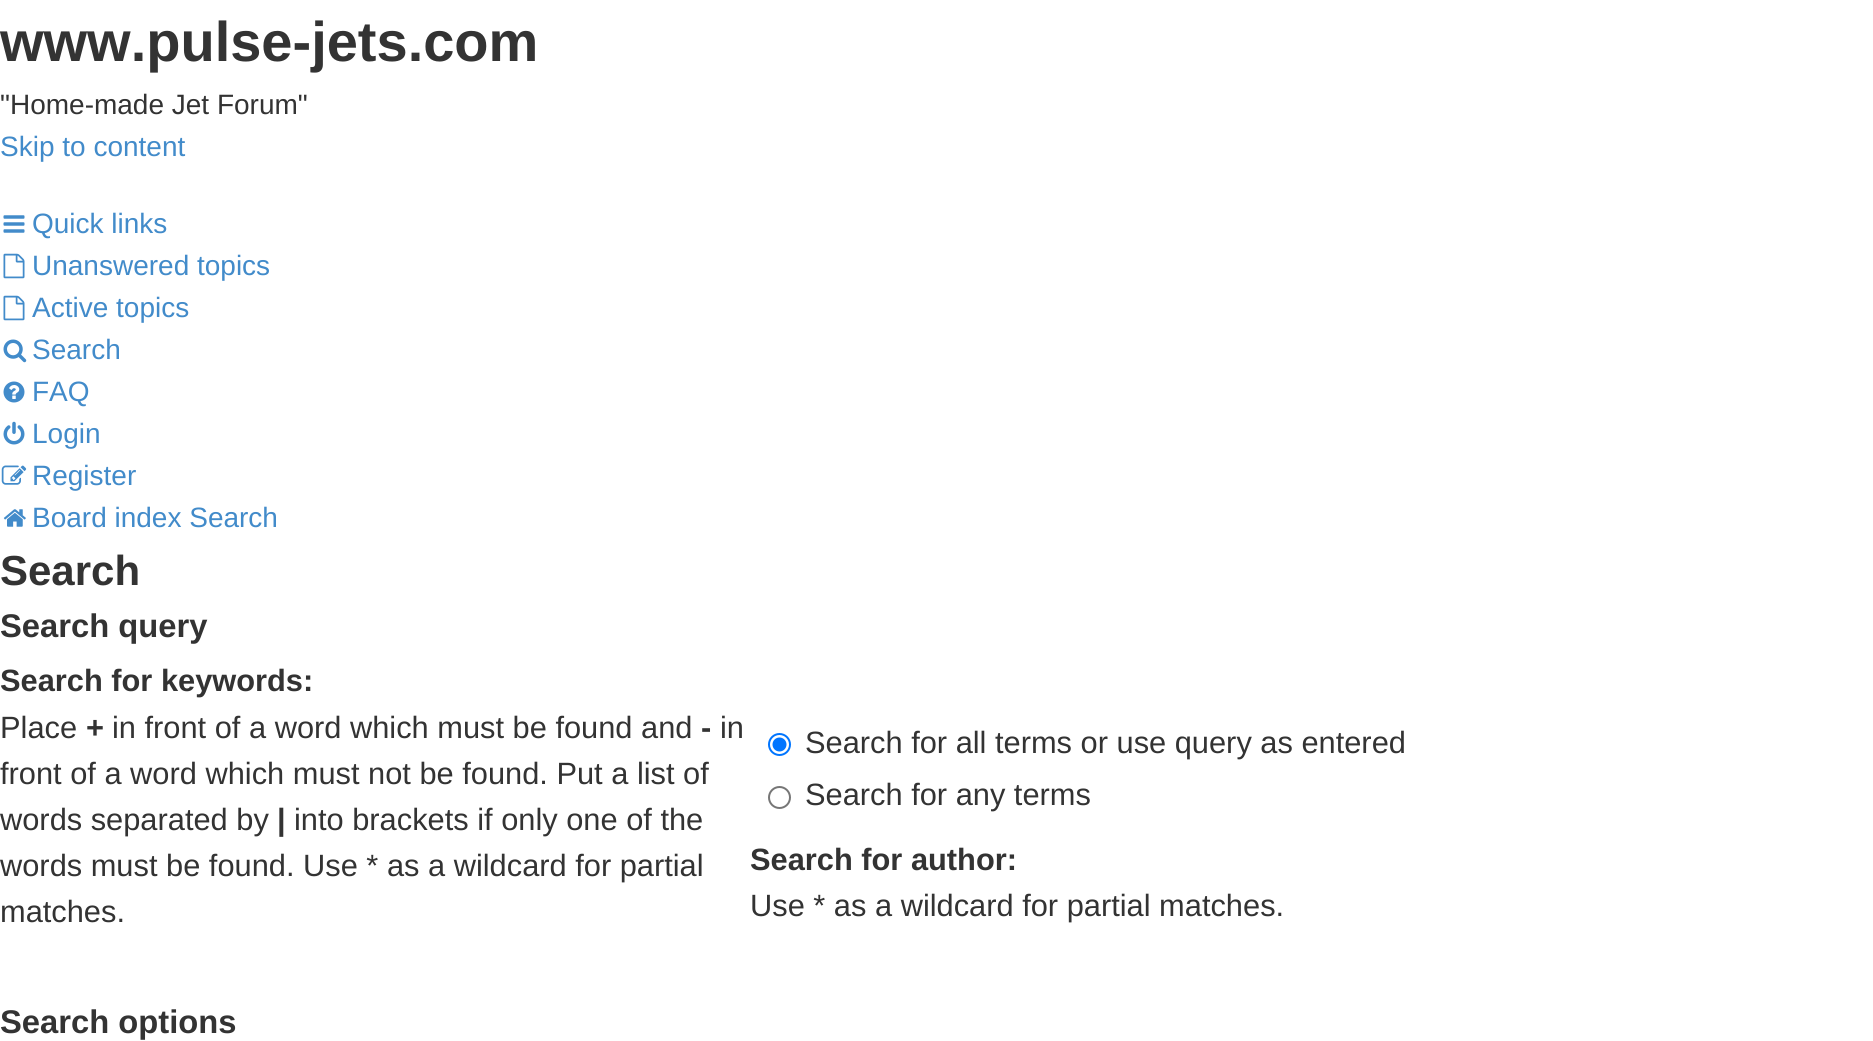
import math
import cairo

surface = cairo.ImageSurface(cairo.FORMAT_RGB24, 1873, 1041)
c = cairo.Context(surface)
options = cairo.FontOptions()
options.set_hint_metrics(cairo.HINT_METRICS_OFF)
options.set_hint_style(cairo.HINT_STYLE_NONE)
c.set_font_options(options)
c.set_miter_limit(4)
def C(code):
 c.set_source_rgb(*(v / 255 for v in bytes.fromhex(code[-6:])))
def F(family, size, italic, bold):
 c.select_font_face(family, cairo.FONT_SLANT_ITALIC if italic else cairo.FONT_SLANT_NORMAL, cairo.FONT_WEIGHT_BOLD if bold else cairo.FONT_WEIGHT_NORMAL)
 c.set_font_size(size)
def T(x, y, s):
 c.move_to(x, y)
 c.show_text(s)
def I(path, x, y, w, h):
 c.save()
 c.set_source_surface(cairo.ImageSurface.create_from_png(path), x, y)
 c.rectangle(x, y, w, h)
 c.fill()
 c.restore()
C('ffffff')
c.paint()
F('Liberation Sans',56,0,1)
C('333333')
T(0,61,'www.pulse-jets.com')
F('Liberation Sans',28,0,0)
T(0,114,'"Home-made Jet Forum"')
C('428bca')
T(0,156,'Skip to content')
I('1.png',3,215,22,18)
T(32,233,'Quick links')
I('2.png',3,253,22,26)
T(32,275,'Unanswered topics')
I('2.png',3,295,22,26)
T(32,317,'Active topics')
I('3.png',3,339,24,24)
T(32,359,'Search')
I('4.png',3,381,22,22)
T(32,401,'FAQ')
I('5.png',3,421,22,24)
T(32,443,'Login')
I('6.png',1,465,26,20)
T(32,485,'Register')
I('7.png',3,509,23,18)
T(32,527,'Board index Search')
F('Liberation Sans',42,0,1)
C('333333')
T(0,585,'Search')
F('Liberation Sans',32.75,0,1)
T(0,637,'Search query')
F('Liberation Sans',30.8,0,1)
T(0,691,'Search for keywords:')
F('Liberation Sans',30.8,0,0)
T(0,738,'Place')
F('Liberation Sans',30.8,0,1)
T(86,738,'+')
F('Liberation Sans',30.8,0,0)
T(112,738,'in front of a word which must be found and')
F('Liberation Sans',30.8,0,1)
T(701,738,'-')
F('Liberation Sans',30.8,0,0)
T(720,738,'in')
T(0,784,'front of a word which must not be found. Put a list of')
T(0,830,'words separated by')
F('Liberation Sans',30.8,0,1)
T(277,830,'|')
F('Liberation Sans',30.8,0,0)
T(294,830,'into brackets if only one of the')
T(0,876,'words must be found. Use * as a wildcard for partial')
T(0,922,'matches.')
c.new_path()
c.arc(779.5,744.5,10.5,0,2 * math.pi)
C('0075ff')
c.stroke()
c.arc(779.5,744.5,7,0,2 * math.pi)
c.fill()
C('333333')
T(805,753,'Search for all terms or use query as entered')
c.new_path()
c.arc(779.5,797.5,10.5,0,2 * math.pi)
C('767676')
c.stroke()
C('333333')
T(805,805,'Search for any terms')
F('Liberation Sans',30.8,0,1)
T(750,870,'Search for author:')
F('Liberation Sans',30.8,0,0)
T(750,916,'Use * as a wildcard for partial matches.')
F('Liberation Sans',32.75,0,1)
T(0,1033,'Search options')
surface.write_to_png('o.png')
